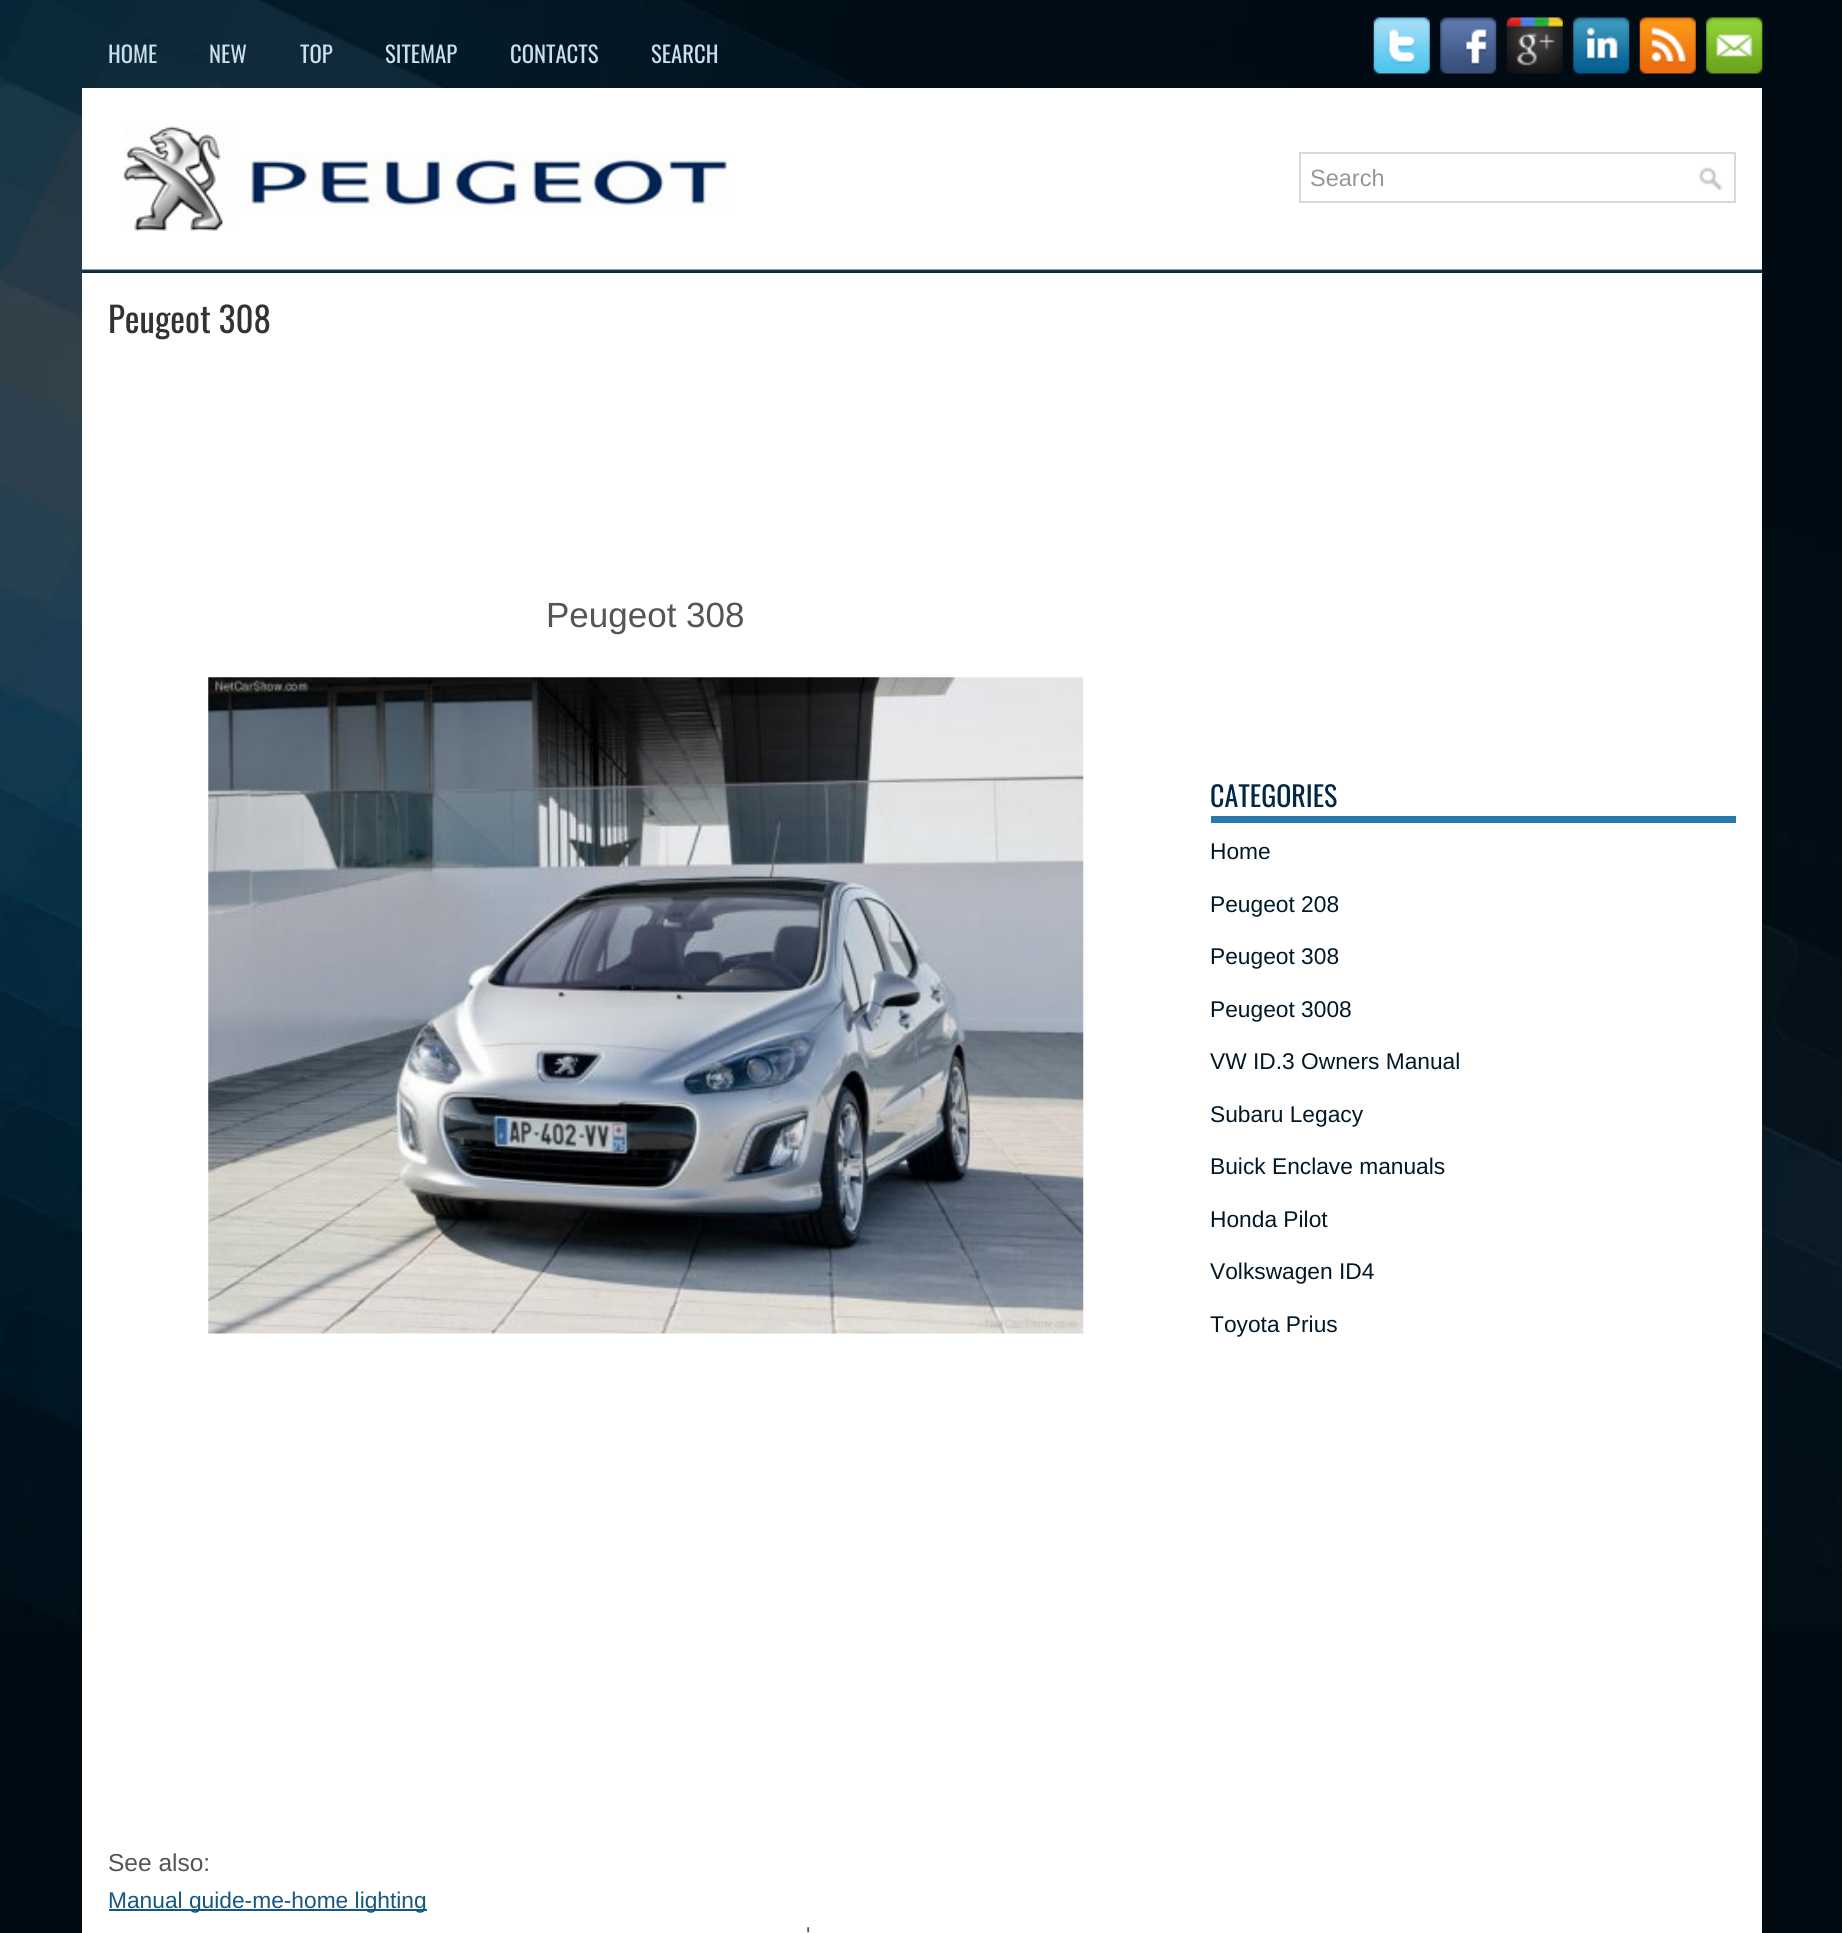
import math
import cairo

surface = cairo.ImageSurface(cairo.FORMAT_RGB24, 1842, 1933)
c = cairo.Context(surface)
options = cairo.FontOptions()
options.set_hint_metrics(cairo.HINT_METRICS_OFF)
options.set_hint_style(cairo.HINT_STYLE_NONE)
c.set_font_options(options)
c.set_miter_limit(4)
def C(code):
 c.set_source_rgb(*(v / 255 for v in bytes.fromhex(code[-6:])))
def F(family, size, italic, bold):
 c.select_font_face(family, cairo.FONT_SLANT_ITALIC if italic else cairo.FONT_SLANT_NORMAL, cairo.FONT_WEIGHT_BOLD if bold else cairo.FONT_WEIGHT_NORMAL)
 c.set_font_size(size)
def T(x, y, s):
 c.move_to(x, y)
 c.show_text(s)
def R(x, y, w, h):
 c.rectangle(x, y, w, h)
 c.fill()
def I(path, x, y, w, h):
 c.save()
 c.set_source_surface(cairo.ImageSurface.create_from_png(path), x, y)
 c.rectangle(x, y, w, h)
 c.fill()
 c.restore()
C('010b14')
c.paint()
I('1.png',0,0,1842,1625)
F('Oswald',22.75,0,0)
C('cae0ee')
T(108,63,'HOME')
T(209,63,'NEW')
T(300,63,'TOP')
T(385,63,'SITEMAP')
T(510,63,'CONTACTS')
T(651,63,'SEARCH')
I('2.png',1373,17,57,57)
I('3.png',1440,17,57,57)
I('4.png',1506,17,57,57)
I('5.png',1573,17,57,57)
I('6.png',1639,17,57,57)
I('7.png',1706,17,57,57)
C('ffffff')
R(82,88,1680,182)
I('8.png',123,126,607,105)
c.rectangle(1300,153,435,49)
C('d8d8d8')
c.stroke()
F('Liberation Sans',23.5,0,0)
C('979797')
T(1310,186,'Search')
I('9.png',1699,167,24,24)
I('10.png',82,269,1681,4)
C('ffffff')
R(82,273,1680,1660)
F('Oswald',35,0,0)
C('333333')
T(108,333,'Peugeot 308')
F('Liberation Sans',35,0,0)
C('555555')
T(546,627,'Peugeot 308')
I('11.png',208,677,876,657)
F('Liberation Sans',24.5,0,0)
T(108,1871,'See also:')
C('155780')
R(109,1909,318,2)
F('Liberation Sans',22.75,0,0)
T(108,1908,'Manual guide-me-home lighting')
C('555555')
T(806,1943,'\'')
C('2679aa')
R(1211,816,525,7)
F('Oswald',28,0,0)
C('012742')
T(1210,807,'CATEGORIES')
F('Liberation Sans',22.75,0,0)
C('021826')
T(1210,859,'Home')
T(1210,912,'Peugeot 208')
T(1210,964,'Peugeot 308')
T(1210,1017,'Peugeot 3008')
T(1210,1069,'VW ID.3 Owners Manual')
T(1210,1122,'Subaru Legacy')
T(1210,1174,'Buick Enclave manuals')
T(1210,1227,'Honda Pilot')
T(1210,1279,'Volkswagen ID4')
T(1210,1332,'Toyota Prius')
surface.write_to_png('o.png')
